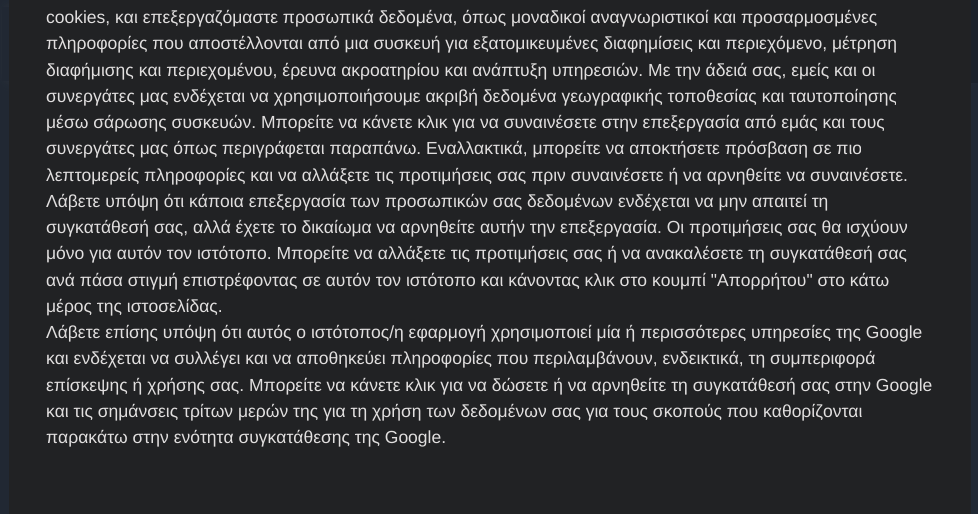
import math
import cairo

surface = cairo.ImageSurface(cairo.FORMAT_RGB24, 978, 514)
c = cairo.Context(surface)
options = cairo.FontOptions()
options.set_hint_metrics(cairo.HINT_METRICS_OFF)
options.set_hint_style(cairo.HINT_STYLE_NONE)
c.set_font_options(options)
c.set_miter_limit(4)
def C(code):
 c.set_source_rgb(*(v / 255 for v in bytes.fromhex(code[-6:])))
def F(family, size, italic, bold):
 c.select_font_face(family, cairo.FONT_SLANT_ITALIC if italic else cairo.FONT_SLANT_NORMAL, cairo.FONT_WEIGHT_BOLD if bold else cairo.FONT_WEIGHT_NORMAL)
 c.set_font_size(size)
def T(x, y, s):
 c.move_to(x, y)
 c.show_text(s)
def R(x, y, w, h):
 c.rectangle(x, y, w, h)
 c.fill()
def Q(x, y, w, h, r):
 c.new_sub_path()
 for i, (u, v) in enumerate([(x + w - r, y + h - r), (x + r, y + h - r), (x + r, y + r), (x + w - r, y + r)]):
  c.arc(u, v, r, i * math.pi / 2, (i + 1) * math.pi / 2)
 c.close_path()
def S(x, y, w, h, r, blur, alpha):
 c.push_group_with_content(cairo.CONTENT_ALPHA)
 c.set_operator(cairo.OPERATOR_SOURCE)
 for i in range(15, -16, -2):
  e = blur * i / 6
  if min(w, h) + 2 * e > 0:
   c.set_source_rgba(0, 0, 0, alpha * math.erfc((i - 1) / 8.5) / 2)
   Q(x - e, y - e, w + 2 * e, h + 2 * e, max(0, min(r + e + blur * .6, min(w, h) / 2 + e)))
   c.fill()
 c.mask(c.pop_group())
C('212833')
c.paint()
C('31373f')
S(8,10,963,68,0,6,1)
C('212833')
R(2,7,7,74)
C('1c222b')
R(971,0,7,83)
C('212224')
R(9,0,962,514)
F('Liberation Sans',17.5,0,0)
C('e1dfdf')
T(46,23,'cookies, και επεξεργαζόμαστε προσωπικά δεδομένα, όπως μοναδικοί αναγνωριστικοί και προσαρμοσμένες')
T(46,49,'πληροφορίες που αποστέλλονται από μια συσκευή για εξατομικευμένες διαφημίσεις και περιεχόμενο, μέτρηση')
T(46,76,'διαφήμισης και περιεχομένου, έρευνα ακροατηρίου και ανάπτυξη υπηρεσιών. Με την άδειά σας, εμείς και οι')
T(46,102,'συνεργάτες μας ενδέχεται να χρησιμοποιήσουμε ακριβή δεδομένα γεωγραφικής τοποθεσίας και ταυτοποίησης')
T(46,128,'μέσω σάρωσης συσκευών. Μπορείτε να κάνετε κλικ για να συναινέσετε στην επεξεργασία από εμάς και τους')
T(46,154,'συνεργάτες μας όπως περιγράφεται παραπάνω. Εναλλακτικά, μπορείτε να αποκτήσετε πρόσβαση σε πιο')
T(46,181,'λεπτομερείς πληροφορίες και να αλλάξετε τις προτιμήσεις σας πριν συναινέσετε ή να αρνηθείτε να συναινέσετε.')
T(46,207,'Λάβετε υπόψη ότι κάποια επεξεργασία των προσωπικών σας δεδομένων ενδέχεται να μην απαιτεί τη')
T(46,233,'συγκατάθεσή σας, αλλά έχετε το δικαίωμα να αρνηθείτε αυτήν την επεξεργασία. Οι προτιμήσεις σας θα ισχύουν')
T(46,259,'μόνο για αυτόν τον ιστότοπο. Μπορείτε να αλλάξετε τις προτιμήσεις σας ή να ανακαλέσετε τη συγκατάθεσή σας')
T(46,286,'ανά πάσα στιγμή επιστρέφοντας σε αυτόν τον ιστότοπο και κάνοντας κλικ στο κουμπί "Απορρήτου" στο κάτω')
T(46,312,'μέρος της ιστοσελίδας.')
T(46,338,'Λάβετε επίσης υπόψη ότι αυτός ο ιστότοπος/η εφαρμογή χρησιμοποιεί μία ή περισσότερες υπηρεσίες της Google')
T(46,364,'και ενδέχεται να συλλέγει και να αποθηκεύει πληροφορίες που περιλαμβάνουν, ενδεικτικά, τη συμπεριφορά')
T(46,391,'επίσκεψης ή χρήσης σας. Μπορείτε να κάνετε κλικ για να δώσετε ή να αρνηθείτε τη συγκατάθεσή σας στην Google')
T(46,417,'και τις σημάνσεις τρίτων μερών της για τη χρήση των δεδομένων σας για τους σκοπούς που καθορίζονται')
T(46,443,'παρακάτω στην ενότητα συγκατάθεσης της Google.')
surface.write_to_png('o.png')
